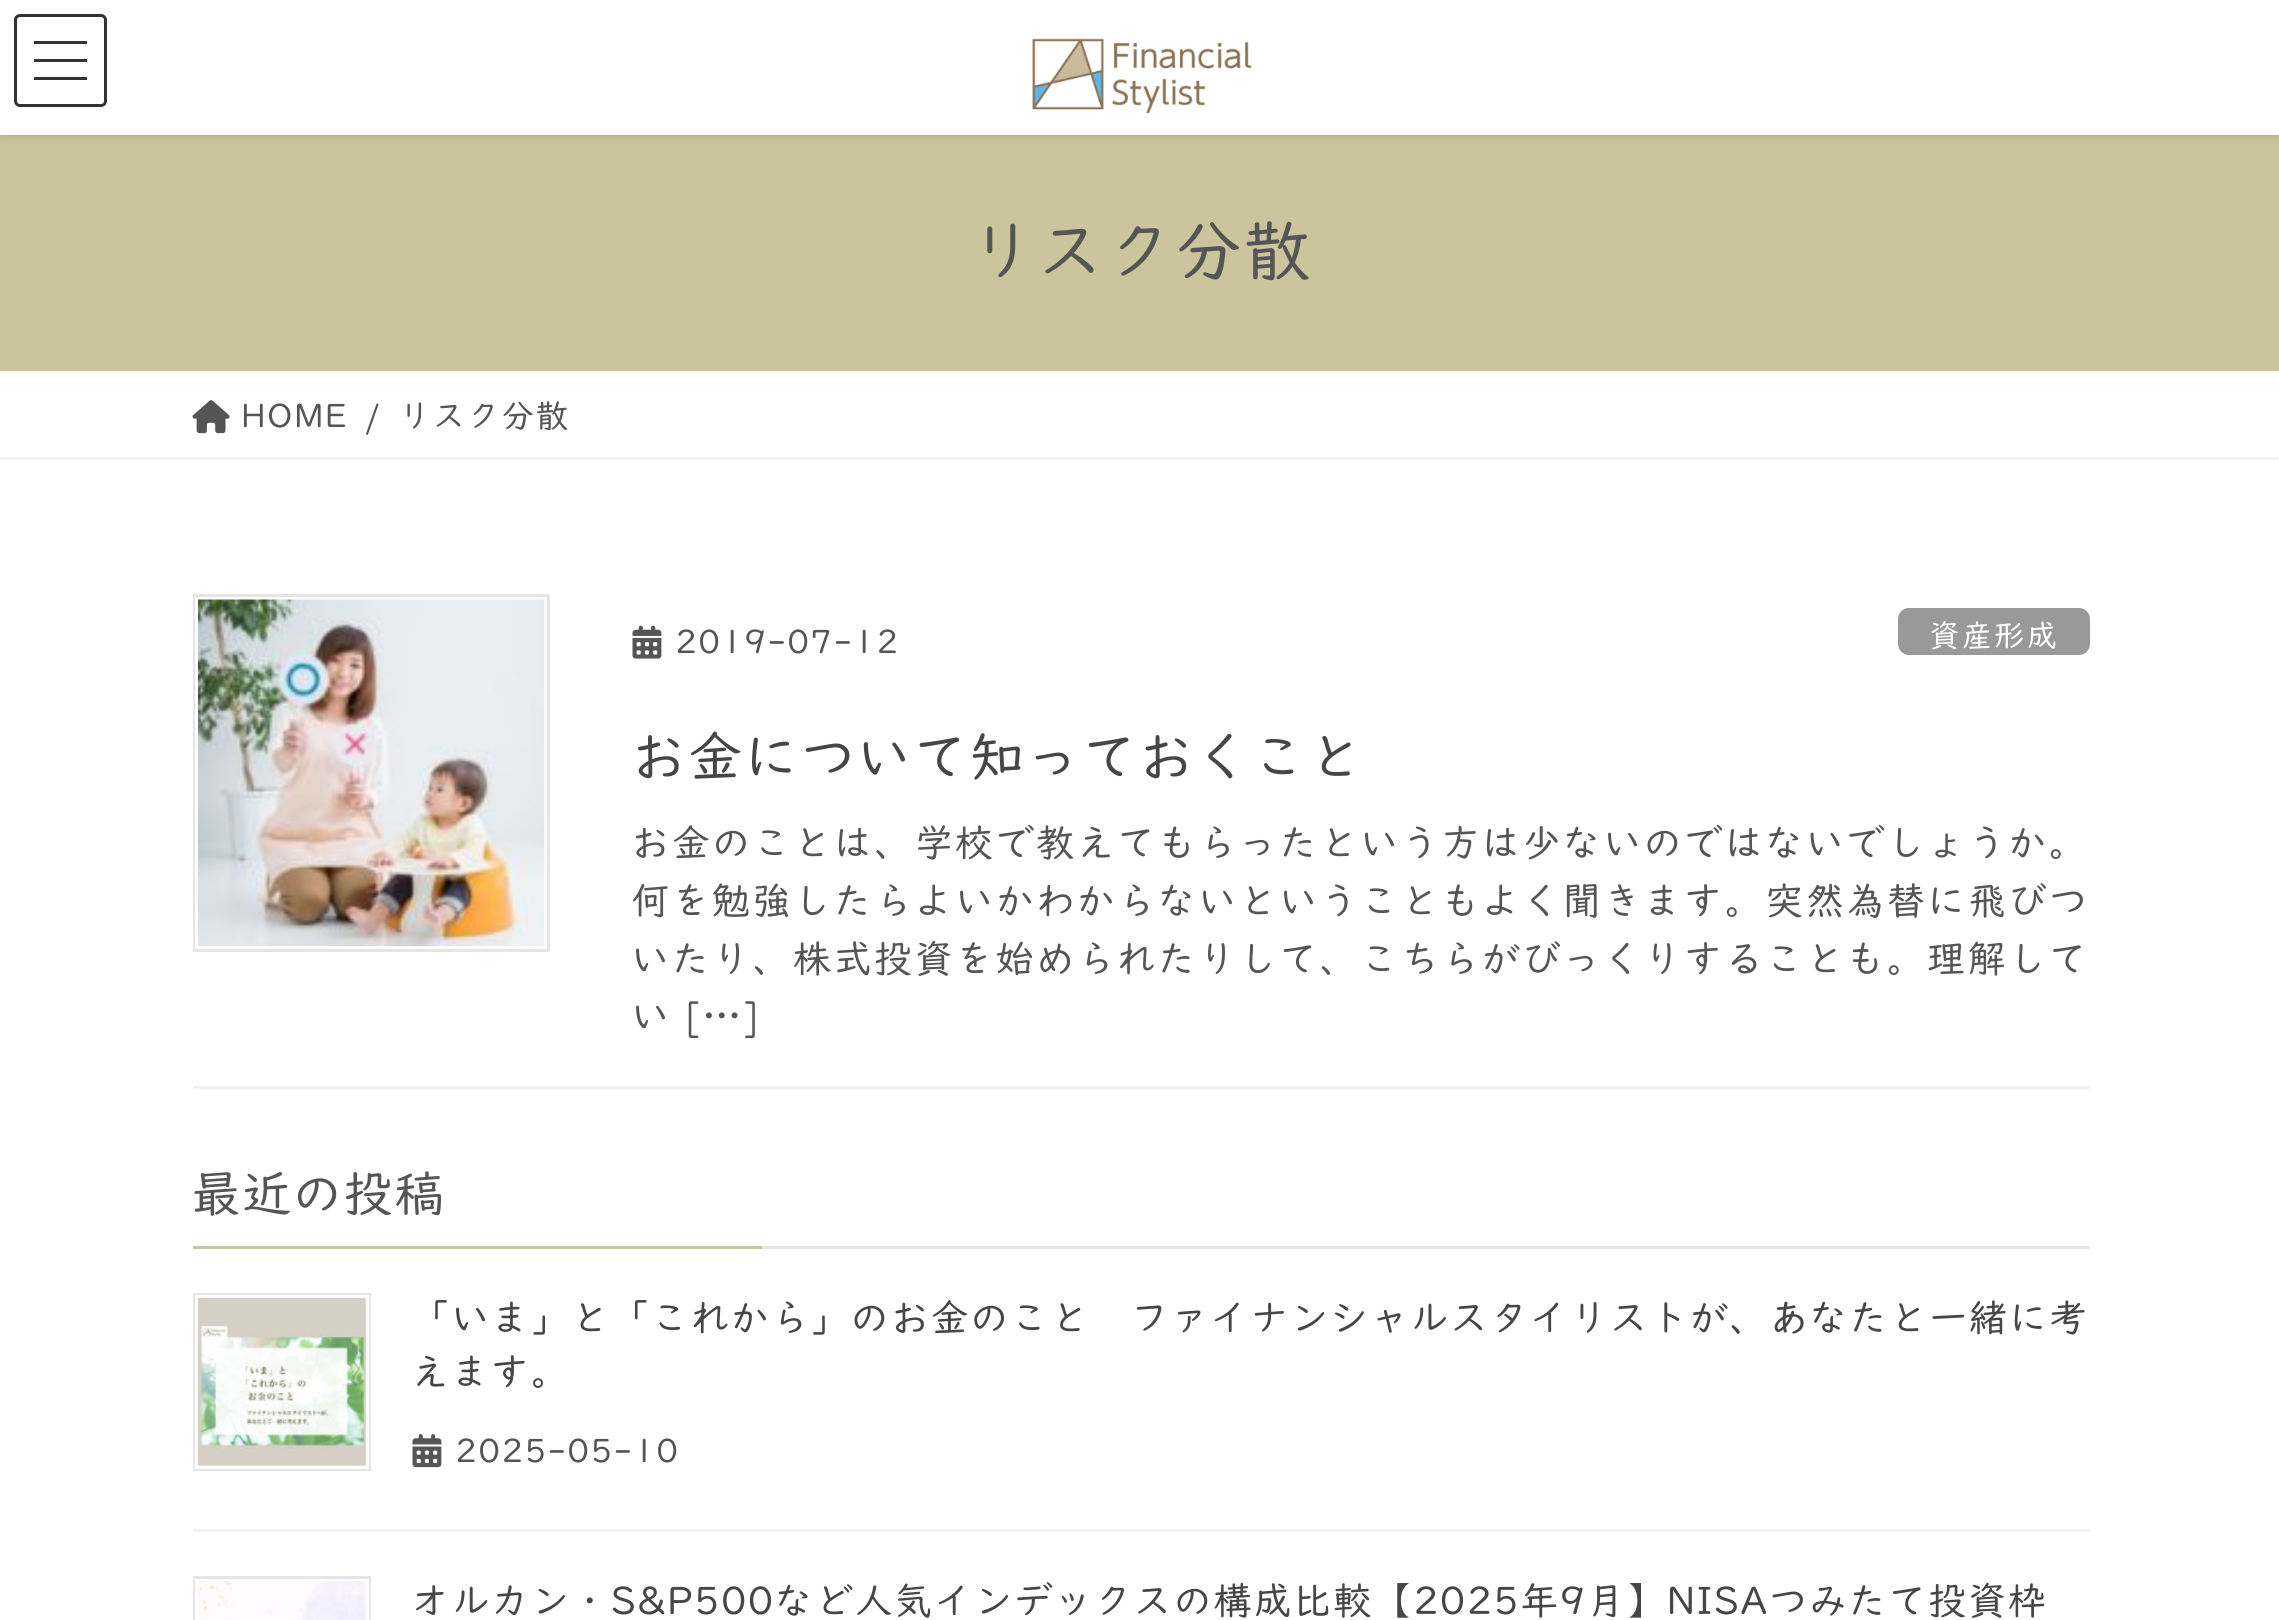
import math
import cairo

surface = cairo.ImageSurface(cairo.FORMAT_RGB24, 2279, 1620)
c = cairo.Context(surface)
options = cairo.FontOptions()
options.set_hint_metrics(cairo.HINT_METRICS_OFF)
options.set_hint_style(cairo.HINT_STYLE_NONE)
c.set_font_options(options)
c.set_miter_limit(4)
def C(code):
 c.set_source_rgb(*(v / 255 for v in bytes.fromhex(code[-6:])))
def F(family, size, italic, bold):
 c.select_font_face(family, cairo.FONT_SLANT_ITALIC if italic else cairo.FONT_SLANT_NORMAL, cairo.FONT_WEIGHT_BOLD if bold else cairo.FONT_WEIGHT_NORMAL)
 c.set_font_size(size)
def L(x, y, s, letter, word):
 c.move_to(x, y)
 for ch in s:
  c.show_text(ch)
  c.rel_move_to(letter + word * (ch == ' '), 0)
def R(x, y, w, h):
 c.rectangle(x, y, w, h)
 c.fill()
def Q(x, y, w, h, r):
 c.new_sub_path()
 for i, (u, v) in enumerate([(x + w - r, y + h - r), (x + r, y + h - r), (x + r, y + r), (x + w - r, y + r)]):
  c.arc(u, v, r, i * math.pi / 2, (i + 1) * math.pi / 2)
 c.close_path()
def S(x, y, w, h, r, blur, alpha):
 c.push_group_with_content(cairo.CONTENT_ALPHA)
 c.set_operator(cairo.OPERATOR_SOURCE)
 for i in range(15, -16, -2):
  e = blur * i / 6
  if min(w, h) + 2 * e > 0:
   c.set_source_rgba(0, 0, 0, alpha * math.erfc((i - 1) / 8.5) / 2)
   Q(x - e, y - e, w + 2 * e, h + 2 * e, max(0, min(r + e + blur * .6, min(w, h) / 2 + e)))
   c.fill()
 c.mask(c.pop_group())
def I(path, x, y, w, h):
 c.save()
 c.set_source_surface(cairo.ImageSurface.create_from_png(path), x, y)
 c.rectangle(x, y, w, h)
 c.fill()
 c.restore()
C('ffffff')
c.paint()
C('ccc49d')
R(0,135,2279,236)
C('000000')
S(0,3,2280,135,0,4,.1)
C('ffffff')
R(0,0,2279,135)
I('1.png',1031,38,222,76)
C('333333')
R(34,41,53,3)
R(34,59,53,3)
R(34,77,53,3)
Q(15.5,15.5,90,90,4.5)
c.set_line_width(3)
c.stroke()
F('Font',67.5,0,0)
C('555555')
L(968,276,'リスク分散',1.4,0)
C('f2f2f2')
R(0,457,2279,3)
I('2.png',192,400,38,34)
F('Font',33,0,0)
C('555555')
L(241,428,'HOME',1.4,0)
L(364,428,'/',1.4,0)
L(398,428,'リスク分散',1.4,0)
C('f2f2f2')
R(193,1086,1897,3)
c.rectangle(194.5,595.5,354,355)
C('e5e5e5')
c.stroke()
c.rectangle(196.5,598.5,349,349)
C('ffffff')
c.stroke()
I('3.png',198,599,347,347)
I('4.png',632,625,30,34)
C('555555')
L(675,654,'2019-07-12',1.4,0)
C('999999')
Q(1898,608,192,47,11)
c.fill()
F('Font',31,0,0)
C('ffffff')
L(1929,647,'資産形成',1.4,0)
F('Font',55,0,0)
C('464646')
L(631,777,'お金について知っておくこと',1.4,0)
F('Font',38.5,0,0)
C('555555')
L(631,857,'お金のことは、学校で教えてもらったという方は少ないのではないでしょうか。',2,0)
L(631,915,'何を勉強したらよいかわからないということもよく聞きます。突然為替に飛びつ',2,0)
L(631,973,'いたり、株式投資を始められたりして、こちらがびっくりすることも。理解して',2,0)
L(631,1030,'い […]',1.4,0)
C('e6e6e6')
R(762,1246,1328,3)
F('Font',49.5,0,0)
C('555555')
L(191,1212,'最近の投稿',1.4,0)
C('ccc49d')
R(193,1246,569,3)
C('f2f2f2')
R(193,1529,1897,3)
c.rectangle(194.5,1294.5,175,175)
C('e5e5e5')
c.stroke()
c.rectangle(196.5,1296.5,171,171)
C('ffffff')
c.stroke()
I('5.png',198,1298,168,168)
F('Font',38.5,0,0)
C('464646')
L(411,1332,'「いま」と「これから」のお金のこと　ファイナンシャルスタイリストが、あなたと一緒に考',1.45,0)
L(411,1386,'えます。',1.4,0)
I('6.png',412,1434,30,34)
F('Font',33,0,0)
C('555555')
L(455,1463,'2025-05-10',1.4,0)
c.rectangle(194.5,1577.5,175,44)
C('e5e5e5')
c.stroke()
c.rectangle(196.5,1580.5,171,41)
C('ffffff')
c.stroke()
I('7.png',198,1581,168,39)
F('Font',38.5,0,0)
C('464646')
L(411,1615,'オルカン・S&P500など人気インデックスの構成比較【2025年9月】NISAつみたて投資枠',1.4,0)
surface.write_to_png('o.png')
